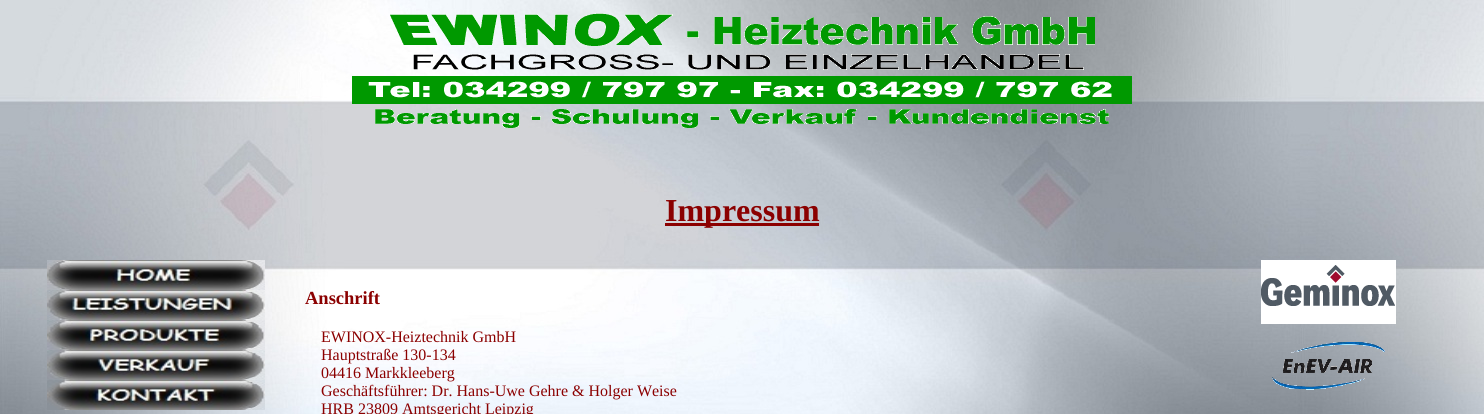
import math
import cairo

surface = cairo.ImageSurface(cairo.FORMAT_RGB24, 1484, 414)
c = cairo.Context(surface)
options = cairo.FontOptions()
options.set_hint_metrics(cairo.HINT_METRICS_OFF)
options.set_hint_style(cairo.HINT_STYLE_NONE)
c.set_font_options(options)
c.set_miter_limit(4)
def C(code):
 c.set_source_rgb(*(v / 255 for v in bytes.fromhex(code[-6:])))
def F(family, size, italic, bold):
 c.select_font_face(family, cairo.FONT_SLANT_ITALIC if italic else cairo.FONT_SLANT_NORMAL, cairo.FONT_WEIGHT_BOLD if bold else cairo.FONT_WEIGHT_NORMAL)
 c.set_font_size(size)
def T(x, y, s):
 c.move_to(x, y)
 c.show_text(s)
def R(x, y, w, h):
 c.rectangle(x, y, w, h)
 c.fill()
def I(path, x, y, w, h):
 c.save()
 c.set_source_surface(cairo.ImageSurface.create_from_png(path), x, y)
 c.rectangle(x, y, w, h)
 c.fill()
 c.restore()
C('ffffff')
c.paint()
I('1.png',0,0,1484,414)
I('2.png',352,13,780,115)
I('3.png',47,260,218,30)
I('4.png',47,290,218,30)
I('5.png',47,320,218,30)
I('6.png',47,350,218,30)
I('7.png',47,380,218,30)
C('8b0000')
R(665,223,154,3)
F('Liberation Serif',32,0,1)
T(665,221,'Impressum')
F('Liberation Serif',18.5,0,1)
T(305,304,'Anschrift')
F('Liberation Serif',16,0,0)
T(321,342,'EWINOX-Heiztechnik GmbH')
T(321,360,'Hauptstraße 130-134')
T(321,378,'04416 Markkleeberg')
T(321,396,'Geschäftsführer: Dr. Hans-Uwe Gehre & Holger Weise')
T(321,414,'HRB 23809 Amtsgericht Leipzig')
I('8.png',1261,260,135,64)
I('9.png',1272,342,113,48)
surface.write_to_png('o.png')
